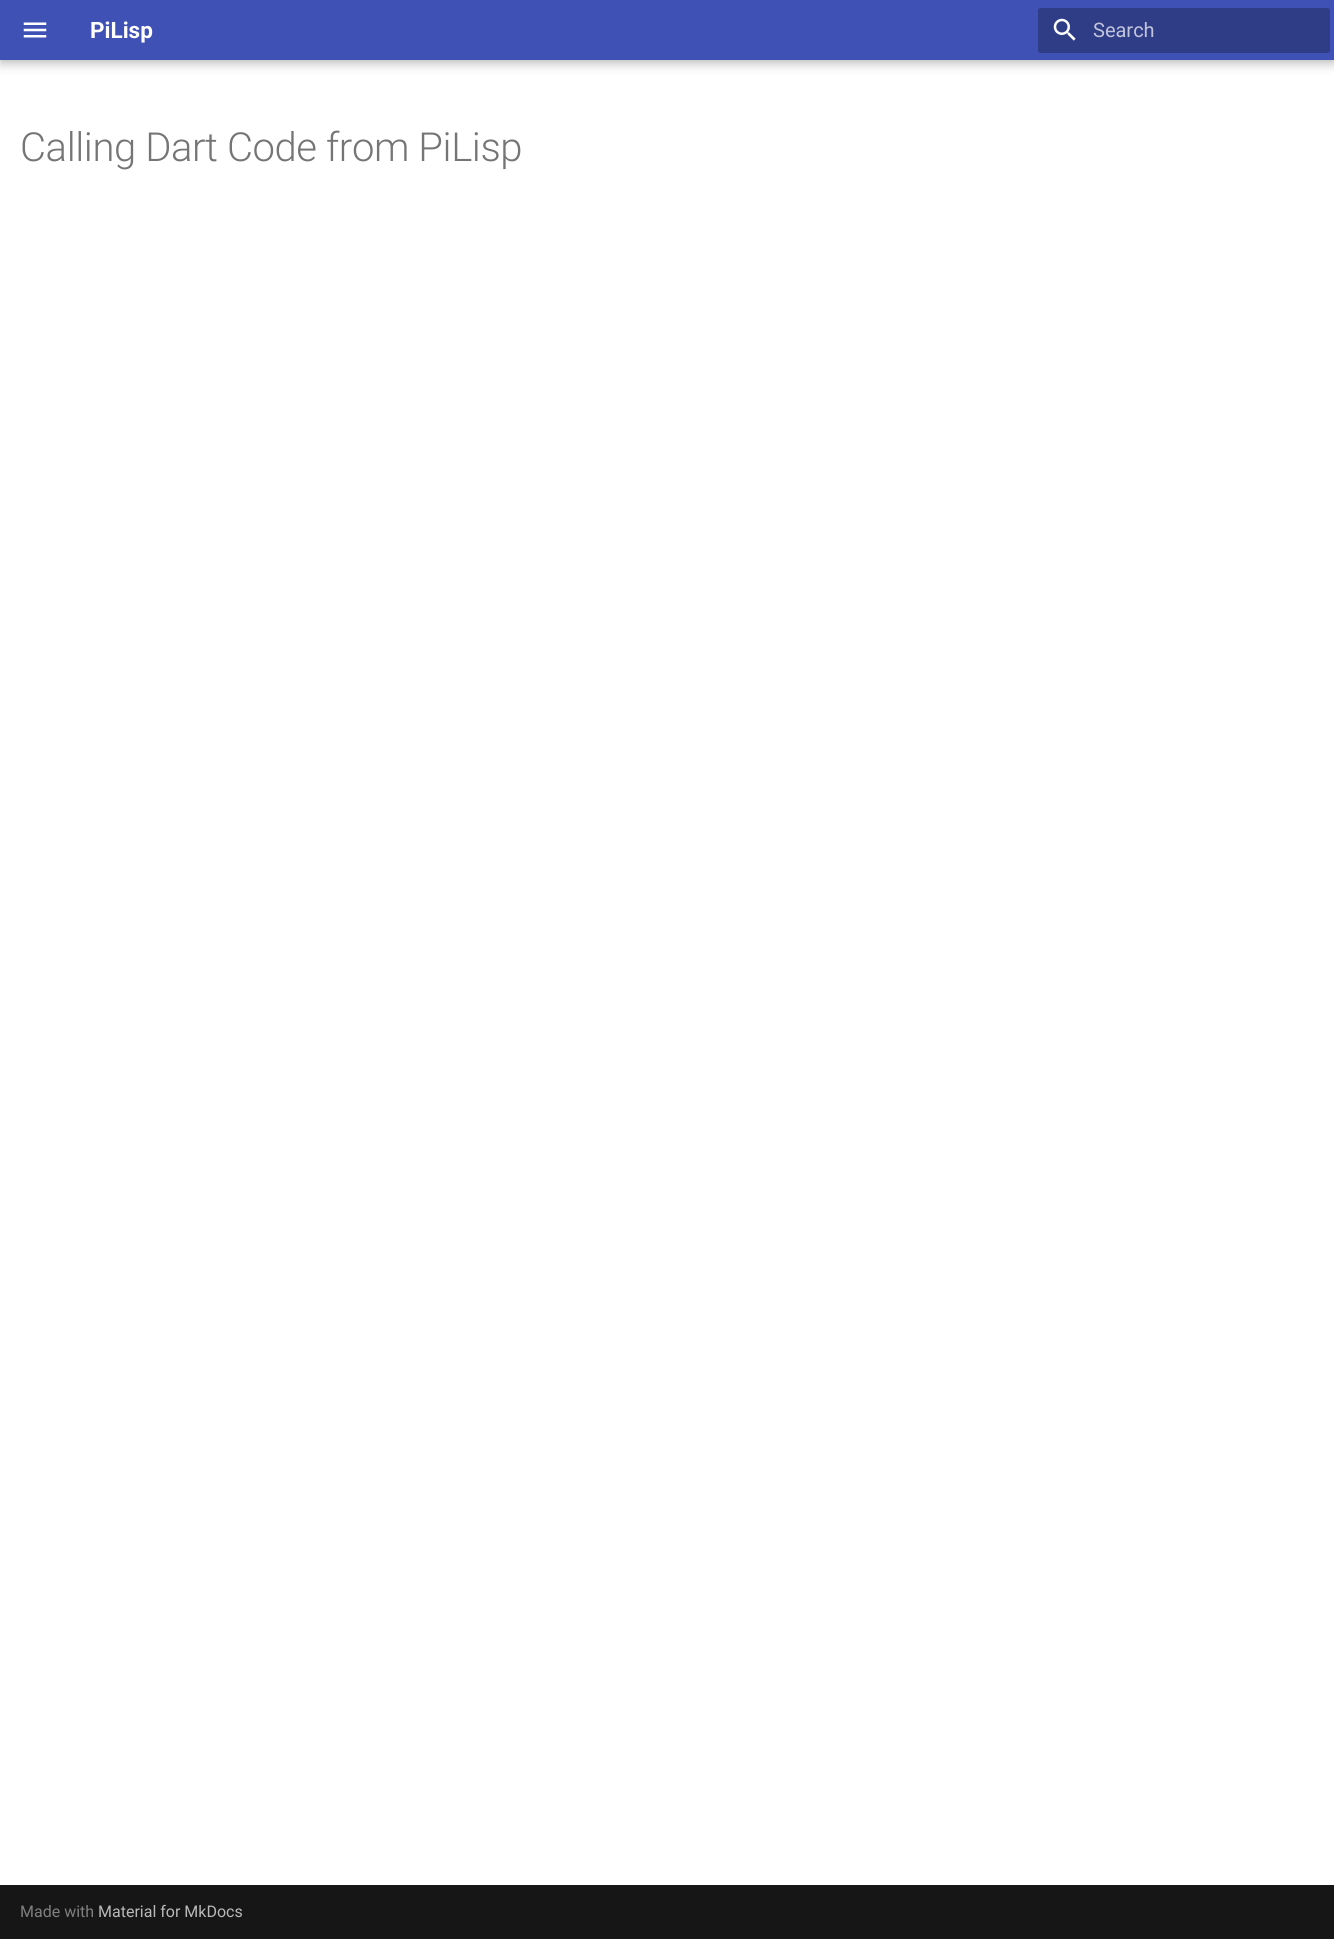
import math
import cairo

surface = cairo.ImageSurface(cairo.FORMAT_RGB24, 1334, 1939)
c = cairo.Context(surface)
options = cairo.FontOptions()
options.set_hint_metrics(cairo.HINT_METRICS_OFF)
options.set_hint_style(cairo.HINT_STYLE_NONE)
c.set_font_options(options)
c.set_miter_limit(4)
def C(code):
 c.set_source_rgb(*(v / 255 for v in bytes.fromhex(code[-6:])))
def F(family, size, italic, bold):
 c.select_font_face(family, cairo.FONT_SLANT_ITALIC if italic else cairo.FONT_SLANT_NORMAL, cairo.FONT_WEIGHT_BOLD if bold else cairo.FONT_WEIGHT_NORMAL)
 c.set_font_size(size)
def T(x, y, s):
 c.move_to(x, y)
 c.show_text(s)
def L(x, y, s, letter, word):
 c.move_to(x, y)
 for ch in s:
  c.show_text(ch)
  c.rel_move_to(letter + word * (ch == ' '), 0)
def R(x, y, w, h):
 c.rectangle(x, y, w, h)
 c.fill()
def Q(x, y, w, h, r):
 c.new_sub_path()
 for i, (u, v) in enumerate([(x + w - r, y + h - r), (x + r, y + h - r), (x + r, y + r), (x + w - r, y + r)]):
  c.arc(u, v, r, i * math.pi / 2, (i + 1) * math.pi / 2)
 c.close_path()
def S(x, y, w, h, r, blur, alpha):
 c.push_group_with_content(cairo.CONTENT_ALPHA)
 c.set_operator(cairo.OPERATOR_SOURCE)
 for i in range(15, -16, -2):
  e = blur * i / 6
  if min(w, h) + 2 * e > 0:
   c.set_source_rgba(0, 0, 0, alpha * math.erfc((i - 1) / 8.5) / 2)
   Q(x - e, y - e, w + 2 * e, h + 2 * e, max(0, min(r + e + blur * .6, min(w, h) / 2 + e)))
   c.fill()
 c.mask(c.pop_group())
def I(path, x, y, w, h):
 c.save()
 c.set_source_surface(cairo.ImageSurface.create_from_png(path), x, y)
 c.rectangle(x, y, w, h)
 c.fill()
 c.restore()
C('ffffff')
c.paint()
C('000000')
S(0,5,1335,60,0,5,.2)
S(0,0,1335,60,0,2.5,.1)
C('4051b5')
R(0,0,1334,60)
I('1.png',23,22,24,16)
F('Roboto',22.5,0,1)
C('ffffff')
T(90,38,'PiLisp')
C('2f3c86')
Q(1038,8,292,45,2.5)
c.fill()
I('2.png',1053,18,23,23)
F('Roboto',20,0,0)
C('c1c5db')
T(1093,37,'Search')
F('Roboto Light',40,0,0)
C('757575')
L(20,161,'Calling Dart Code from PiLisp',-.4,0)
C('161616')
R(0,1885,1334,54)
F('Roboto',16,0,0)
C('7f7f7f')
T(20,1917,'Made with')
C('b9b9b9')
T(98,1917,'Material for MkDocs')
surface.write_to_png('o.png')
